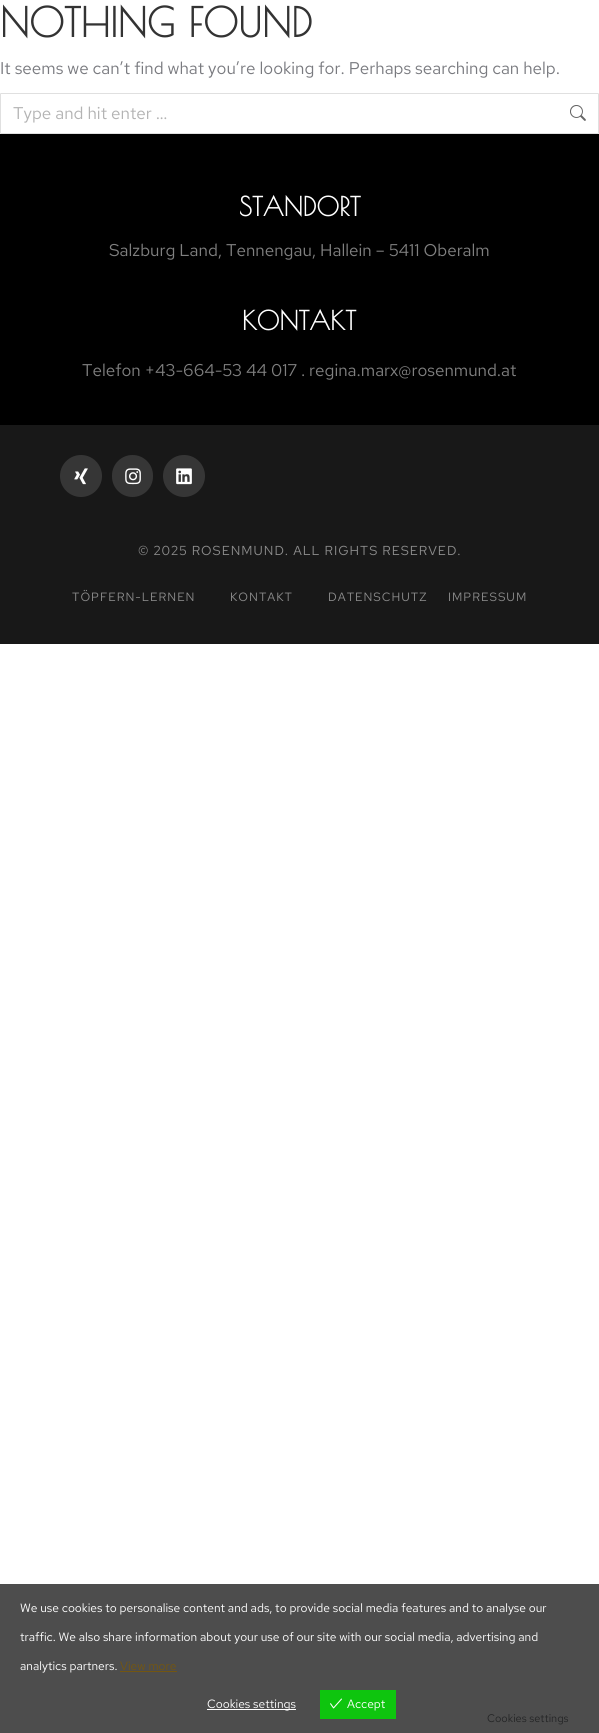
import math
import cairo

surface = cairo.ImageSurface(cairo.FORMAT_RGB24, 599, 1733)
c = cairo.Context(surface)
options = cairo.FontOptions()
options.set_hint_metrics(cairo.HINT_METRICS_OFF)
options.set_hint_style(cairo.HINT_STYLE_NONE)
c.set_font_options(options)
c.set_miter_limit(4)
def C(code):
 c.set_source_rgb(*(v / 255 for v in bytes.fromhex(code[-6:])))
def F(family, size, italic, bold):
 c.select_font_face(family, cairo.FONT_SLANT_ITALIC if italic else cairo.FONT_SLANT_NORMAL, cairo.FONT_WEIGHT_BOLD if bold else cairo.FONT_WEIGHT_NORMAL)
 c.set_font_size(size)
def T(x, y, s):
 c.move_to(x, y)
 c.show_text(s)
def L(x, y, s, letter, word):
 c.move_to(x, y)
 for ch in s:
  c.show_text(ch)
  c.rel_move_to(letter + word * (ch == ' '), 0)
def R(x, y, w, h):
 c.rectangle(x, y, w, h)
 c.fill()
def Q(x, y, w, h, r):
 c.new_sub_path()
 for i, (u, v) in enumerate([(x + w - r, y + h - r), (x + r, y + h - r), (x + r, y + r), (x + w - r, y + r)]):
  c.arc(u, v, r, i * math.pi / 2, (i + 1) * math.pi / 2)
 c.close_path()
def I(path, x, y, w, h):
 c.save()
 c.set_source_surface(cairo.ImageSurface.create_from_png(path), x, y)
 c.rectangle(x, y, w, h)
 c.fill()
 c.restore()
C('ffffff')
c.paint()
C('4d4d4d')
R(0,1584,599,149)
F('Poiret One',40,0,1)
C('333333')
T(0,37,'NOTHING FOUND')
F('Red Hat Text',17,0,0)
C('797a7f')
T(0,74,'It seems we can’t find what you’re looking for. Perhaps searching can help.')
Q(.5,93.5,598,40,.5)
C('e0e0e0')
c.set_line_width(1)
c.stroke()
C('b3b3b3')
T(13,119,'Type and hit enter …')
I('1.png',570,105,16,16)
C('000000')
R(0,134,599,291)
F('Poiret One',26,0,1)
C('ffffff')
T(239,216,'STANDORT')
F('Red Hat Text',17,0,0)
C('808080')
T(109,256,'Salzburg Land, Tennengau, Hallein – 5411 Oberalm')
F('Poiret One',26,0,1)
C('ffffff')
T(242,330,'KONTAKT')
F('Red Hat Text',17,0,0)
C('808080')
T(82,376,'Telefon +43-664-53 44 017 . regina.marx@rosenmund.at')
C('181818')
R(0,425,599,219)
C('363636')
c.new_path()
c.arc(81,476,21,0,2 * math.pi)
c.fill()
I('2.png',74,468,14,17)
Q(112,455,41,42,20.5)
c.fill()
I('3.png',125,468,16,17)
c.arc(184,476,21,0,2 * math.pi)
c.fill()
I('4.png',176,468,16,17)
F('Red Hat Text',13,0,0)
C('8c8c8c')
L(138,555,'© 2025 ROSENMUND. ALL RIGHTS RESERVED.',1,0)
F('Red Hat Text',12,0,0)
L(72,601,'TÖPFERN-LERNEN',1,0)
L(230,601,'KONTAKT',1,0)
L(328,601,'DATENSCHUTZ',1,0)
L(448,601,'IMPRESSUM',1,0)
C('ffffff')
T(20,1612,'We use cookies to personalise content and ads, to provide social media features and to analyse our')
T(20,1641,'traffic. We also share information about your use of our site with our social media, advertising and')
T(20,1670,'analytics partners.')
C('735611')
T(120,1670,'View more')
R(120,1671,57,1)
C('ffffff')
R(207,1709,89,1)
T(207,1708,'Cookies settings')
C('0ec50e')
R(320,1690,76,29)
I('5.png',330,1698,12,11)
C('ffffff')
T(347,1708,'Accept')
F('Red Hat Text',11,0,0)
C('242526')
T(487,1722,'Cookies settings')
surface.write_to_png('o.png')
